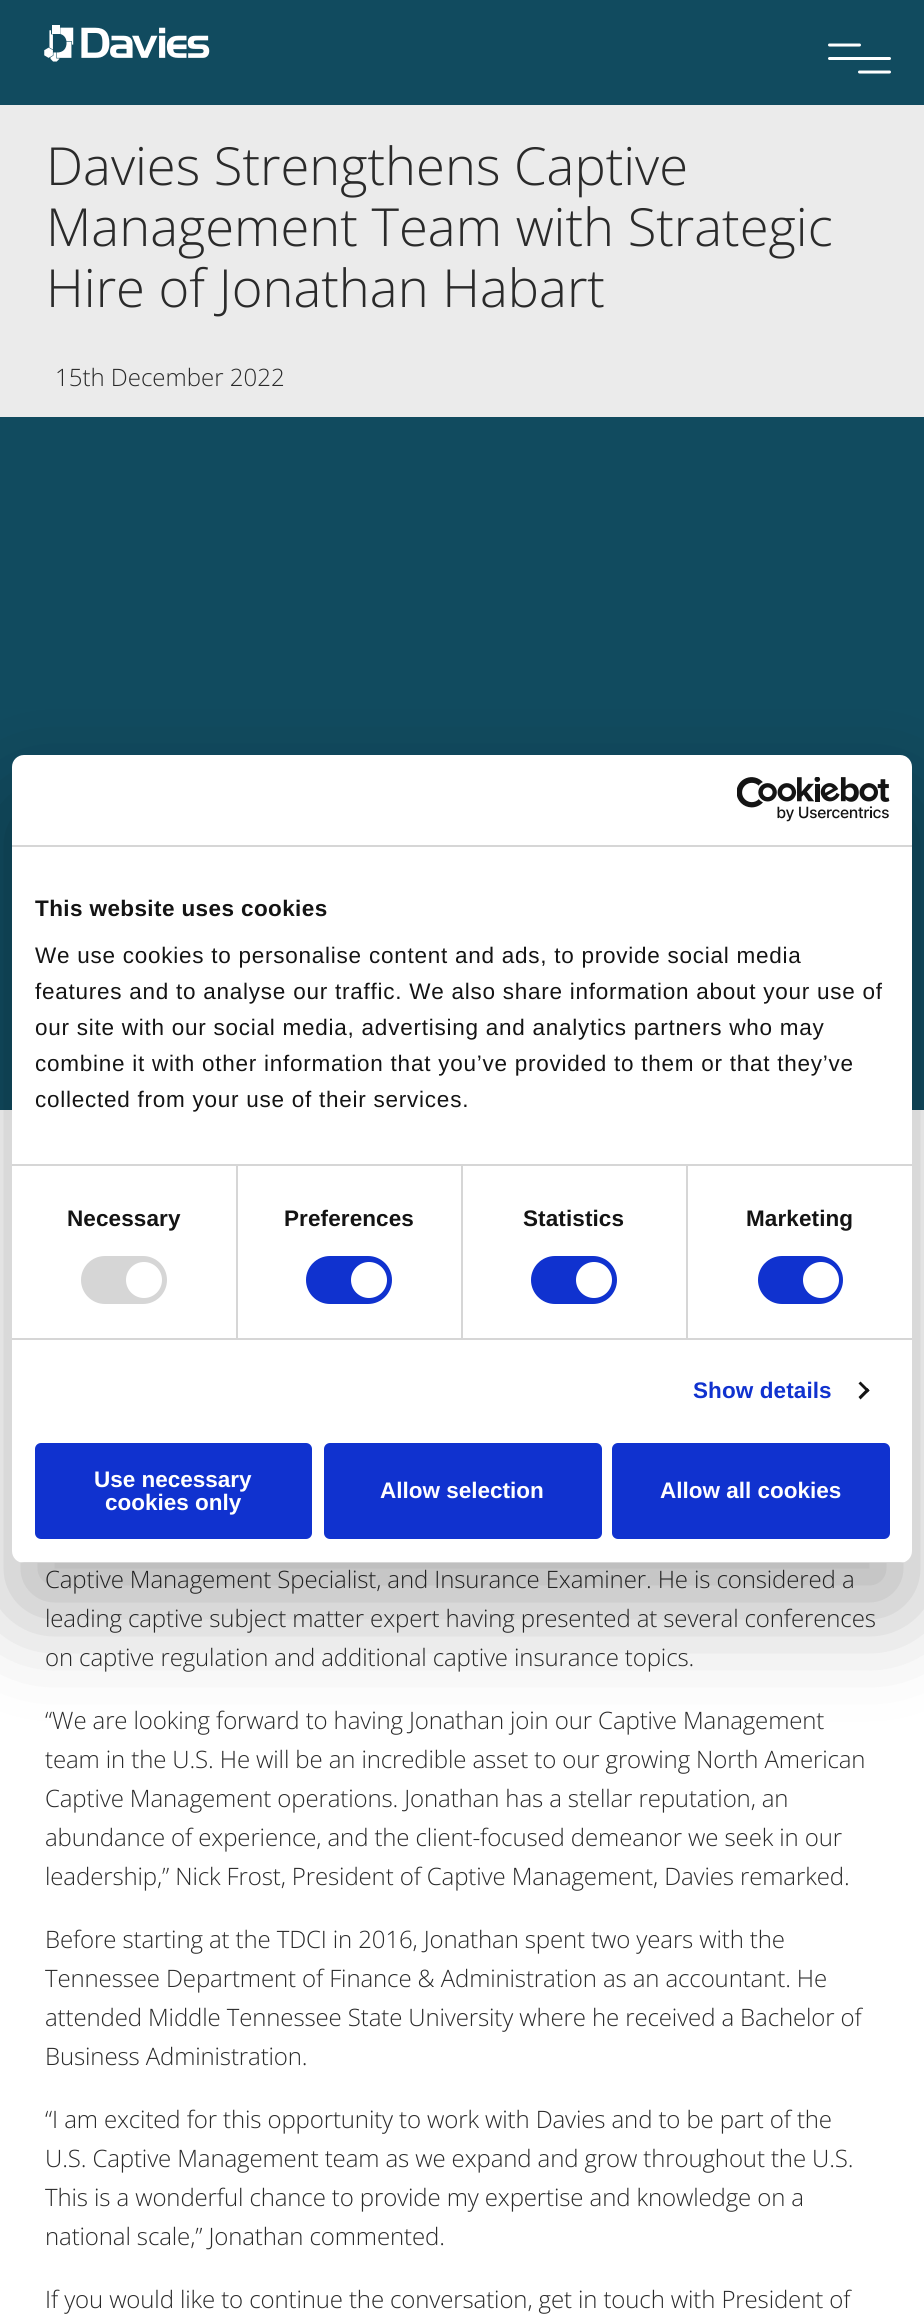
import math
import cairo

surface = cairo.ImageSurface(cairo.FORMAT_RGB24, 924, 2316)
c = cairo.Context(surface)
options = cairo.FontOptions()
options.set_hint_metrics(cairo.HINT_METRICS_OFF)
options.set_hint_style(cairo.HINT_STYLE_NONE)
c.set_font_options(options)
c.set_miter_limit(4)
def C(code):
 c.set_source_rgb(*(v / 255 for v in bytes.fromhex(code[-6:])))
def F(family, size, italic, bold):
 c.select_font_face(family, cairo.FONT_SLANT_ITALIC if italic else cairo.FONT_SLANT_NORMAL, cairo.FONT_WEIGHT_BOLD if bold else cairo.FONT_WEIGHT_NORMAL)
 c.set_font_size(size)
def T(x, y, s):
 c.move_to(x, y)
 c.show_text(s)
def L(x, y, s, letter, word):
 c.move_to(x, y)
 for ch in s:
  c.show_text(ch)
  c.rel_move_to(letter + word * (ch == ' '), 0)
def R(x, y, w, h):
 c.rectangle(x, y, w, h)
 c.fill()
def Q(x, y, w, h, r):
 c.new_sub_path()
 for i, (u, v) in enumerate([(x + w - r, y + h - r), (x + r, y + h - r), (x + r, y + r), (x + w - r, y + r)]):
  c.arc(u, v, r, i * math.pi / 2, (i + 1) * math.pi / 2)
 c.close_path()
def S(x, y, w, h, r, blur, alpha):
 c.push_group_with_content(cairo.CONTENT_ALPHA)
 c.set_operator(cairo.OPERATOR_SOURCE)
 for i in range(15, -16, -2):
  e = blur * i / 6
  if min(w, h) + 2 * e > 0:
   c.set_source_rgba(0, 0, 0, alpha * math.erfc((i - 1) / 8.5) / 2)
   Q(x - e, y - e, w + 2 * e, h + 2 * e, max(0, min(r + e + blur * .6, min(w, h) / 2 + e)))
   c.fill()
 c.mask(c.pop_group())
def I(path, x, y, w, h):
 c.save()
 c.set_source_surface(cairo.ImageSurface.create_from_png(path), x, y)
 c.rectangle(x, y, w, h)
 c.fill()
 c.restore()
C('ffffff')
c.paint()
C('114b5f')
R(0,0,924,105)
I('1.png',44,25,166,37)
c.new_path()
c.move_to(829.5,45)
c.line_to(859.5,45)
c.move_to(829.5,58.5)
c.line_to(889.5,58.5)
c.move_to(829.5,58.5)
c.line_to(889.5,58.5)
c.move_to(859.5,72)
c.line_to(889.5,72)
C('ffffff')
c.set_line_width(3)
c.set_line_cap(cairo.LINE_CAP_ROUND)
c.stroke()
C('114b5f')
R(0,417,924,693)
C('ebebeb')
R(0,105,924,312)
F('Open Sans Light',52.5,0,0)
C('2a2a2a')
T(46,185,'Davies Strengthens Captive')
T(46,246,'Management Team with Strategic')
T(46,307,'Hire of Jonathan Habart')
F('Open Sans Light',24,0,0)
T(55,386,'15th December 2022')
L(45,1588,'Captive Management Specialist, and Insurance Examiner. He is considered a',-.12,0)
L(45,1627,'leading captive subject matter expert having presented at several conferences',-.12,0)
L(45,1666,'on captive regulation and additional captive insurance topics.',-.12,0)
L(45,1729,'“We are looking forward to having Jonathan join our Captive Management',-.12,0)
L(45,1768,'team in the U.S. He will be an incredible asset to our growing North American',-.12,0)
L(45,1807,'Captive Management operations. Jonathan has a stellar reputation, an',-.12,0)
L(45,1846,'abundance of experience, and the client-focused demeanor we seek in our',-.12,0)
L(45,1885,'leadership,” Nick Frost, President of Captive Management, Davies remarked.',-.12,0)
L(45,1948,'Before starting at the TDCI in 2016, Jonathan spent two years with the',-.12,0)
L(45,1987,'Tennessee Department of Finance & Administration as an accountant. He',-.12,0)
L(45,2026,'attended Middle Tennessee State University where he received a Bachelor of',-.12,0)
L(45,2065,'Business Administration.',-.12,0)
L(45,2128,'“I am excited for this opportunity to work with Davies and to be part of the',-.12,0)
L(45,2167,'U.S. Captive Management team as we expand and grow throughout the U.S.',-.12,0)
L(45,2206,'This is a wonderful chance to provide my expertise and knowledge on a',-.12,0)
L(45,2245,'national scale,” Jonathan commented.',-.12,0)
L(45,2308,'If you would like to continue the conversation, get in touch with President of',-.12,0)
C('000000')
S(12,803,900,808,12,51,.3)
C('ffffff')
Q(12,755,900,808,12)
c.fill()
C('d6d6d6')
R(12,845,900,2)
I('2.png',737,777,153,45)
R(12,1164,900,2)
F('Liberation Sans',22.5,0,1)
C('141414')
L(35,916,'This website uses cookies',.4,0)
F('Liberation Sans',22.5,0,0)
L(35,963,'We use cookies to personalise content and ads, to provide social media',.75,0)
L(35,999,'features and to analyse our traffic. We also share information about your use of',.75,0)
L(35,1035,'our site with our social media, advertising and analytics partners who may',.75,0)
L(35,1071,'combine it with other information that you’ve provided to them or that they’ve',.75,0)
L(35,1107,'collected from your use of their services.',.75,0)
C('d6d6d6')
R(12,1338,900,2)
R(236,1166,2,172)
F('Liberation Sans',22.5,0,1)
C('141414')
L(67,1226,'Necessary',.1,0)
C('d6d6d6')
Q(81,1256,86,48,24)
c.fill()
C('ffffff')
c.arc(144,1280,18,0,2 * math.pi)
c.fill()
C('d6d6d6')
R(461,1166,2,172)
C('141414')
L(284,1226,'Preferences',.1,0)
C('1032cf')
Q(306,1256,86,48,24)
c.fill()
C('ffffff')
c.arc(369,1280,18,0,2 * math.pi)
c.fill()
C('d6d6d6')
R(686,1166,2,172)
C('141414')
L(523,1226,'Statistics',.1,0)
C('1032cf')
Q(531,1256,86,48,24)
c.fill()
C('ffffff')
c.arc(594,1280,18,0,2 * math.pi)
c.fill()
C('141414')
L(746,1226,'Marketing',.1,0)
C('1032cf')
Q(758,1256,85,48,24)
c.fill()
C('ffffff')
c.arc(821,1280,18,0,2 * math.pi)
c.fill()
C('1032cf')
L(693,1398,'Show details',.1,0)
C('141414')
c.new_path()
c.move_to(860.5,1381.5)
c.line_to(869.5,1390.5)
c.line_to(867.5,1392.5)
c.line_to(858.5,1383.5)
c.close_path()
c.fill()
c.new_path()
c.move_to(867.5,1388)
c.line_to(869.5,1390.5)
c.line_to(860.5,1399.5)
c.line_to(858.5,1397)
c.close_path()
c.fill()
c.save()
Q(12,755,900,808,12)
c.clip()
C('d6d6d6')
R(12,1562,900,1)
c.restore()
C('1032cf')
Q(36.5,1444.5,274,93,4.5)
c.fill_preserve()
c.set_line_cap(cairo.LINE_CAP_BUTT)
c.stroke()
C('ffffff')
T(94,1487,'Use necessary')
T(105,1510,'cookies only')
C('1032cf')
Q(325.5,1444.5,275,93,4.5)
c.fill_preserve()
c.stroke()
C('ffffff')
T(380,1498,'Allow selection')
C('1032cf')
Q(613.5,1444.5,275,93,4.5)
c.fill_preserve()
c.stroke()
C('ffffff')
T(660,1498,'Allow all cookies')
surface.write_to_png('o.png')
